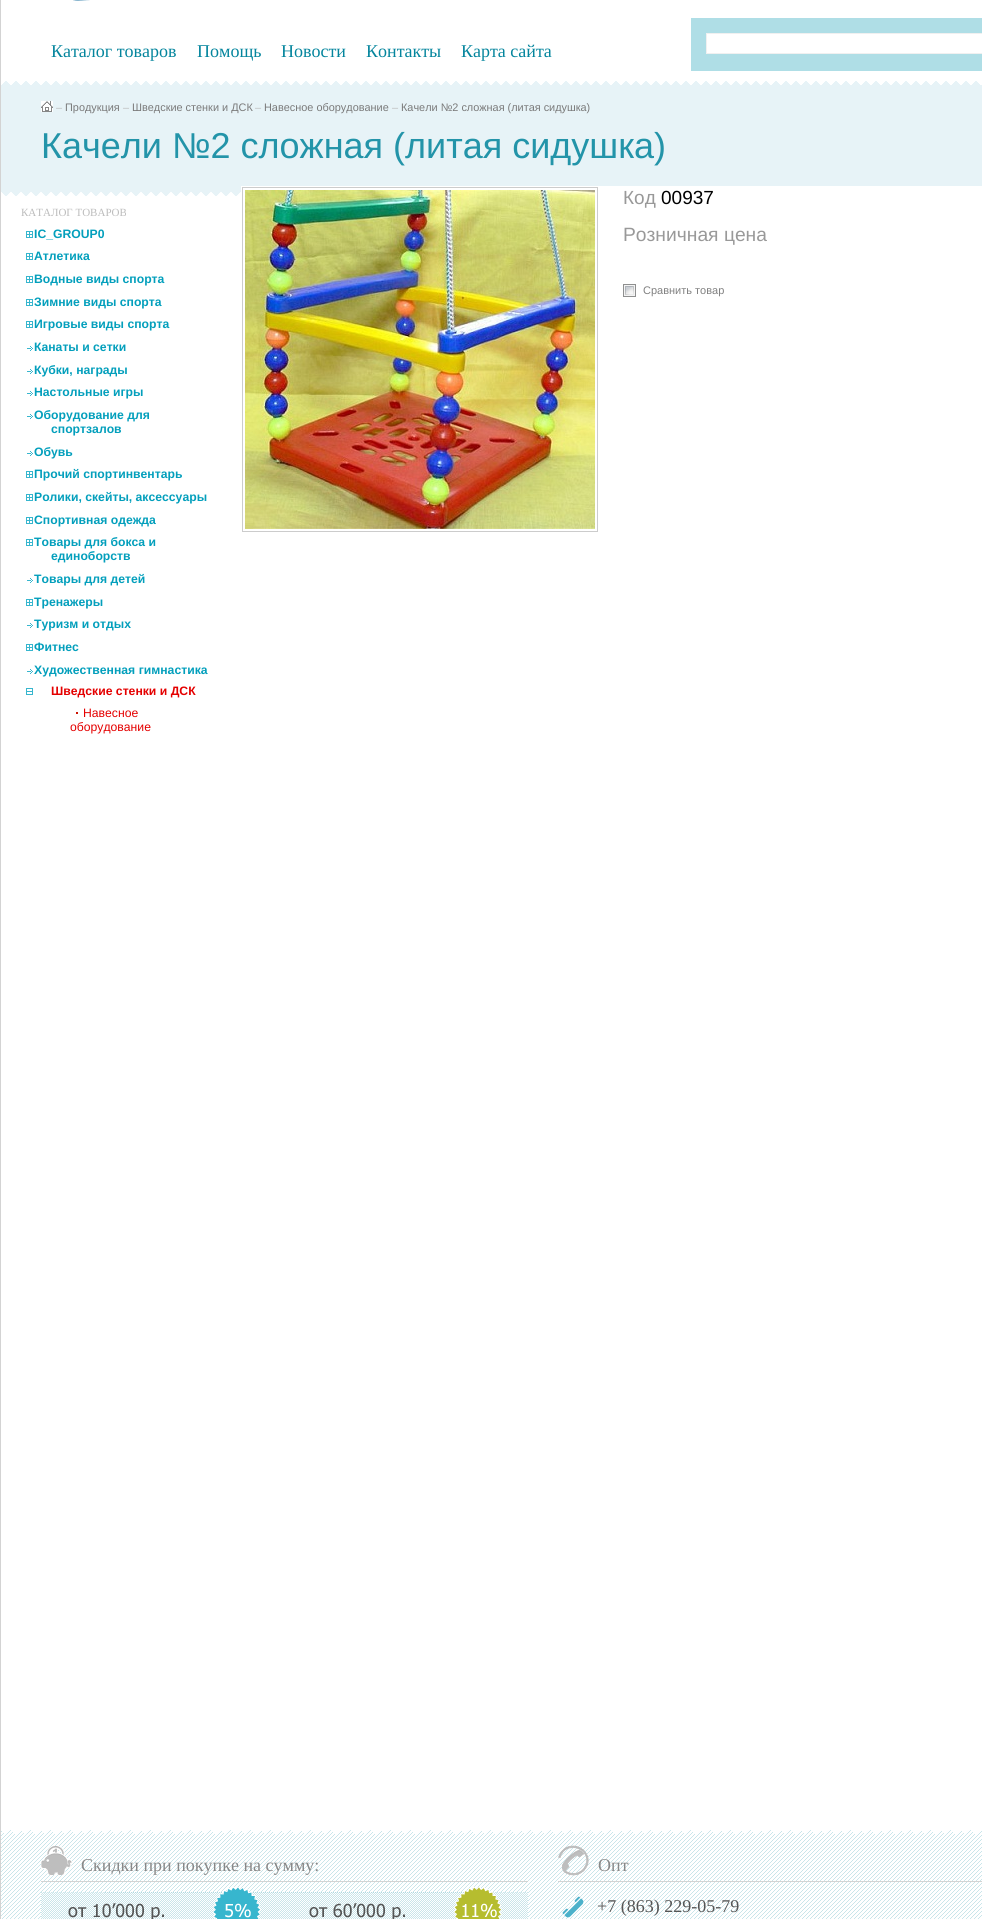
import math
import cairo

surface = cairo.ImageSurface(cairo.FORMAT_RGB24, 982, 1919)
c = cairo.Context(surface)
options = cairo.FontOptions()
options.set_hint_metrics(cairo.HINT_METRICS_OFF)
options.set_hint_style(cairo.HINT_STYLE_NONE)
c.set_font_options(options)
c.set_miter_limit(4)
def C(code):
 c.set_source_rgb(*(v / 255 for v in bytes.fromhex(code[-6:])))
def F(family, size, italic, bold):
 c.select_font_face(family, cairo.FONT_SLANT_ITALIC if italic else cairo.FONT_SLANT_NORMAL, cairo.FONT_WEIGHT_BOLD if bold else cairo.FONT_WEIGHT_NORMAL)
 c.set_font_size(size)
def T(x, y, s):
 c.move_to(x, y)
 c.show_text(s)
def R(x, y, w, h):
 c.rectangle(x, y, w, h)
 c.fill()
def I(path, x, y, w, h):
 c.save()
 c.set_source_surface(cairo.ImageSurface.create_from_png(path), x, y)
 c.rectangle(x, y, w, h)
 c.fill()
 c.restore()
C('ffffff')
c.paint()
C('d3d3d3')
R(0,0,1,1919)
I('1.png',73,0,17,1)
F('Liberation Serif',18,0,0)
C('04859d')
T(51,57,'Каталог товаров')
T(197,57,'Помощь')
T(281,57,'Новости')
T(366,57,'Контакты')
T(461,57,'Карта сайта')
C('afdee6')
R(691,18,291,53)
C('ffffff')
c.rectangle(706.5,33.5,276,20)
c.fill_preserve()
C('f0f0f0')
c.set_line_width(1)
c.stroke()
I('2.png',1,81,981,43)
I('3.png',41,101,12,11)
F('Liberation Sans',10.9,1,0)
C('bcbcbc')
T(56,111,'–')
F('Liberation Sans',10.9,0,0)
C('7a7a7a')
T(65,111,'Продукция')
F('Liberation Sans',10.9,1,0)
C('bcbcbc')
T(123,111,'–')
F('Liberation Sans',10.9,0,0)
C('7a7a7a')
T(132,111,'Шведские стенки и ДСК')
F('Liberation Sans',10.9,1,0)
C('bcbcbc')
T(255,111,'–')
F('Liberation Sans',10.9,0,0)
C('7a7a7a')
T(264,111,'Навесное оборудование')
F('Liberation Sans',10.9,1,0)
C('bcbcbc')
T(392,111,'–')
F('Liberation Sans',10.9,0,0)
C('7a7a7a')
T(401,111,'Качели №2 сложная (литая сидушка)')
I('4.png',1,124,981,72)
F('Liberation Sans',36,0,0)
C('2394a9')
T(41,158,'Качели №2 сложная (литая сидушка)')
F('Liberation Serif',11,0,0)
C('bcbcbc')
T(21,216,'КАТАЛОГ ТОВАРОВ')
I('5.png',26,231,7,7)
F('Liberation Sans',12.2,0,1)
C('039fbc')
T(34,238,'IC_GROUP0')
I('5.png',26,253,7,7)
T(34,260,'Атлетика')
I('5.png',26,276,7,7)
T(34,283,'Водные виды спорта')
I('5.png',26,299,7,7)
T(34,306,'Зимние виды спорта')
I('5.png',26,321,7,7)
T(34,328,'Игровые виды спорта')
I('6.png',27,346,6,5)
T(34,351,'Канаты и сетки')
I('6.png',27,369,6,5)
T(34,374,'Кубки, награды')
I('6.png',27,391,6,5)
T(34,396,'Настольные игры')
I('6.png',27,414,6,5)
T(34,419,'Оборудование для')
T(51,433,'спортзалов')
I('6.png',27,451,6,5)
T(34,456,'Обувь')
I('5.png',26,471,7,7)
T(34,478,'Прочий спортинвентарь')
I('5.png',26,494,7,7)
T(34,501,'Ролики, скейты, аксессуары')
I('5.png',26,517,7,7)
T(34,524,'Спортивная одежда')
I('5.png',26,539,7,7)
T(34,546,'Товары для бокса и')
T(51,560,'единоборств')
I('6.png',27,578,6,5)
T(34,583,'Товары для детей')
I('5.png',26,599,7,7)
T(34,606,'Тренажеры')
I('6.png',27,623,6,5)
T(34,628,'Туризм и отдых')
I('5.png',26,644,7,7)
T(34,651,'Фитнес')
I('6.png',27,669,6,5)
T(34,674,'Художественная гимнастика')
I('7.png',26,688,7,7)
C('e40000')
T(51,695,'Шведские стенки и ДСК')
C('cc1300')
R(76,712,2,2)
F('Liberation Sans',12.2,0,0)
C('e40000')
T(83,717,'Навесное')
T(70,731,'оборудование')
C('ffffff')
R(241,186,741,10)
c.rectangle(242.5,187.5,355,344)
C('cccccc')
c.stroke()
I('8.png',245,190,350,339)
F('Liberation Sans',19,0,0)
C('999999')
T(623,204,'Код')
C('000000')
T(661,204,'00937')
F('Liberation Sans',19.25,0,0)
C('999999')
T(623,241,'Розничная цена')
I('9.png',623,284,13,13)
F('Liberation Sans',11,0,0)
C('808080')
T(643,294,'Сравнить товар')
I('10.png',1,1830,981,89)
I('11.png',41,1846,31,29)
C('d3d3d3')
R(41,1881,487,1)
F('Liberation Serif',18,0,0)
C('888888')
T(81,1871,'Скидки при покупке на сумму:')
I('12.png',41,1887,487,32)
I('13.png',558,1845,31,31)
C('d3d3d3')
R(558,1881,424,1)
C('888888')
T(598,1871,'Опт')
I('14.png',562,1896,22,22)
C('555555')
T(597,1912,'+7 (863) 229-05-79')
surface.write_to_png('o.png')
